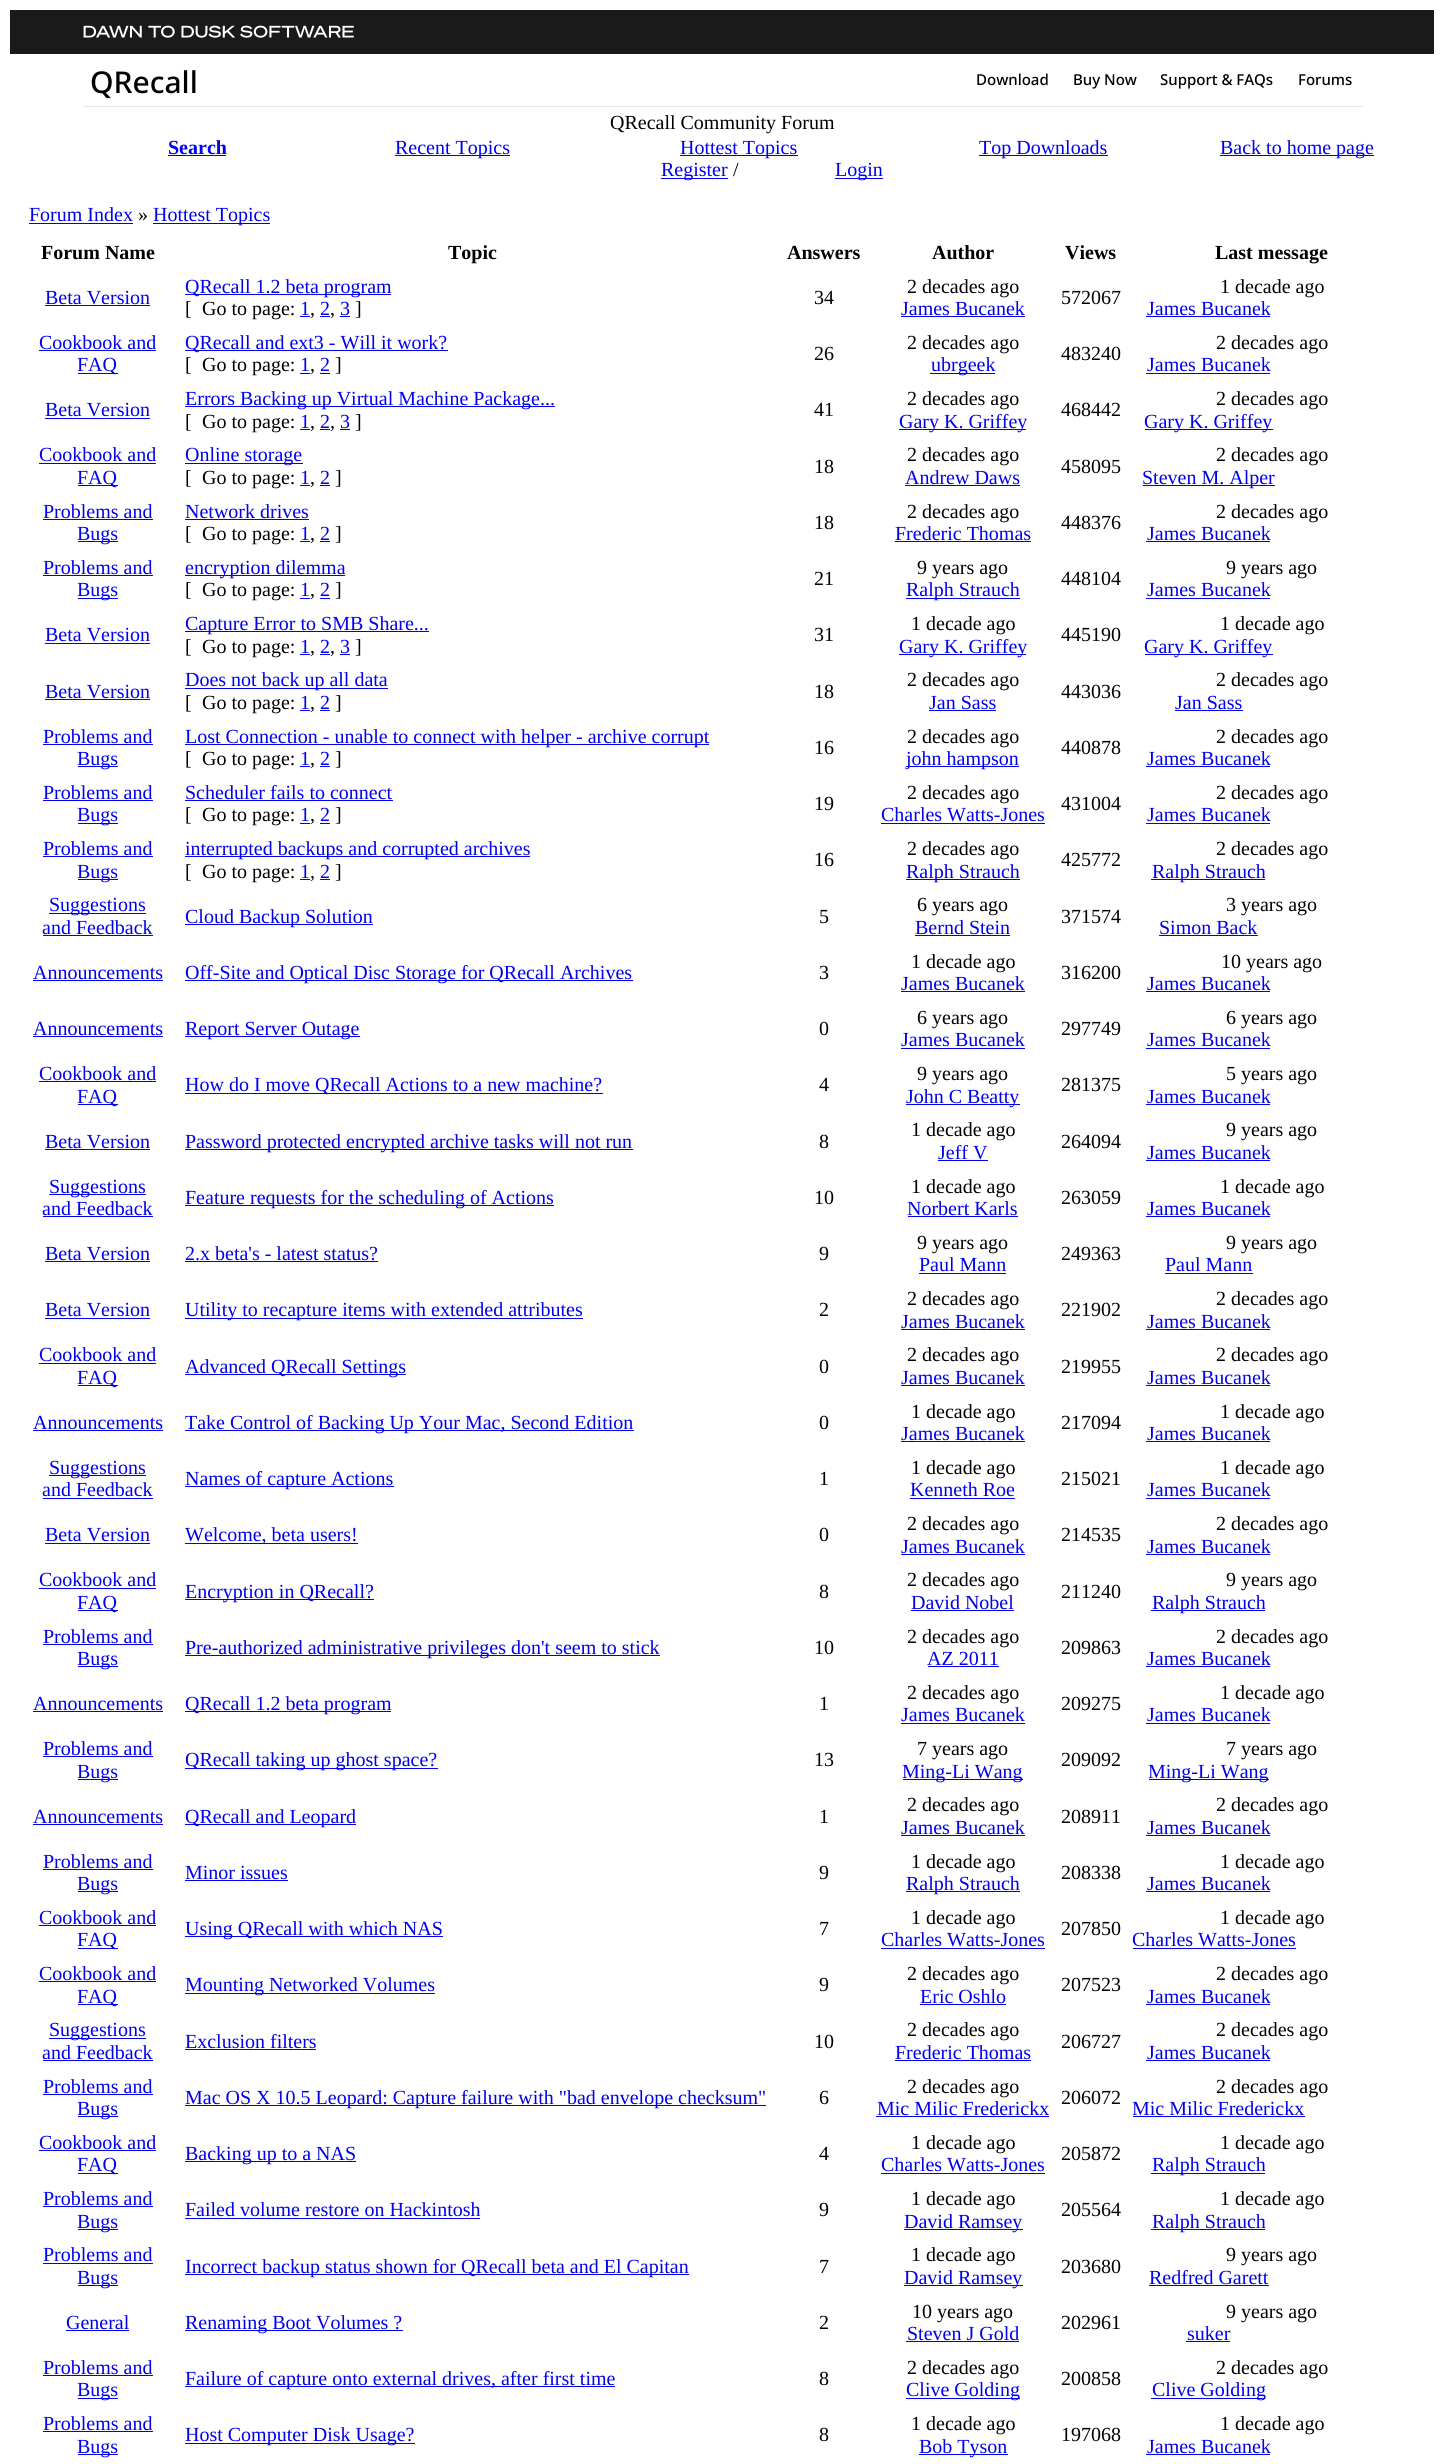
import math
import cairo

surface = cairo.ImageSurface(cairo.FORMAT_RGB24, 1443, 2464)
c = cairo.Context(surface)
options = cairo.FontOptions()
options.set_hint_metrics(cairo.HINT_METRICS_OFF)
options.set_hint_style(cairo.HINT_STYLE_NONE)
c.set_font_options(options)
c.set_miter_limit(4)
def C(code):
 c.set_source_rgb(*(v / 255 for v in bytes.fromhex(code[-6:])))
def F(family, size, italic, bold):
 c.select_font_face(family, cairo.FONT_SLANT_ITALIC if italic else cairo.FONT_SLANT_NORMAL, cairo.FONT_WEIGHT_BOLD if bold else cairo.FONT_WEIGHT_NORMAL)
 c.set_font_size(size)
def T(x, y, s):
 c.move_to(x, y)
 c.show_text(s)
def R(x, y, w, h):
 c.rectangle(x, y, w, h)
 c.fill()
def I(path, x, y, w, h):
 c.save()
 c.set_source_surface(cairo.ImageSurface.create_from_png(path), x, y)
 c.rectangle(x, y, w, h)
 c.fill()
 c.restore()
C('ffffff')
c.paint()
C('1a1a1a')
R(10,10,1424,44)
I('1.png',83,25,271,13)
C('e6e6e6')
R(83,106,1280,1)
F('Noto Sans Medium',30,0,0)
C('000000')
T(90,93,'QRecall')
F('Noto Sans Medium',15,0,0)
T(976,85,'Download')
T(1073,85,'Buy Now')
T(1160,85,'Support & FAQs')
T(1298,85,'Forums')
F('Liberation Serif',20,0,0)
T(610,129,'QRecall Community Forum')
F('Liberation Serif',20,0,1)
C('0000ee')
T(168,154,'Search')
R(168,155,58,1)
R(395,155,115,1)
F('Liberation Serif',20,0,0)
T(395,154,'Recent Topics')
R(680,155,118,1)
T(680,154,'Hottest Topics')
R(979,155,129,1)
T(979,154,'Top Downloads')
R(1220,155,154,1)
T(1220,154,'Back to home page')
R(661,178,67,1)
T(661,176,'Register')
C('000000')
T(733,176,'/')
C('0000ee')
R(835,178,48,1)
T(835,176,'Login')
T(29,221,'Forum Index')
R(29,223,104,1)
C('000000')
T(138,221,'»')
C('0000ee')
R(153,223,117,1)
T(153,221,'Hottest Topics')
F('Liberation Serif',20,0,1)
C('000000')
T(41,259,'Forum Name')
T(448,259,'Topic')
T(787,259,'Answers')
T(932,259,'Author')
T(1065,259,'Views')
T(1215,259,'Last message')
F('Liberation Serif',20,0,0)
C('0000ee')
T(45,304,'Beta Version')
R(45,305,105,1)
R(185,294,206,1)
T(185,293,'QRecall 1.2 beta program')
C('000000')
T(185,315,'[')
T(202,315,'Go to page:')
C('0000ee')
T(300,315,'1')
C('000000')
T(310,315,',')
C('0000ee')
R(300,316,10,1)
T(320,315,'2')
C('000000')
T(330,315,',')
C('0000ee')
R(320,316,10,1)
R(340,316,10,1)
T(340,315,'3')
C('000000')
T(355,315,']')
T(814,304,'34')
T(907,293,'2 decades ago')
C('0000ee')
T(901,315,'James Bucanek')
R(901,316,124,1)
C('000000')
T(1061,304,'572067')
T(1220,293,'1 decade ago')
C('0000ee')
T(1147,315,'James Bucanek')
R(1146,316,124,1)
T(39,349,'Cookbook and')
R(39,350,117,1)
R(78,373,40,1)
T(77,371,'FAQ')
R(185,350,263,1)
T(185,349,'QRecall and ext3 - Will it work?')
C('000000')
T(185,371,'[')
T(202,371,'Go to page:')
C('0000ee')
T(300,371,'1')
C('000000')
T(310,371,',')
C('0000ee')
R(300,373,10,1)
R(320,373,10,1)
T(320,371,'2')
C('000000')
T(335,371,']')
T(814,360,'26')
T(907,349,'2 decades ago')
C('0000ee')
R(930,373,65,1)
T(931,371,'ubrgeek')
C('000000')
T(1061,360,'483240')
T(1216,349,'2 decades ago')
C('0000ee')
T(1147,371,'James Bucanek')
R(1146,373,124,1)
T(45,416,'Beta Version')
R(45,418,105,1)
R(185,406,370,1)
T(185,405,'Errors Backing up Virtual Machine Package...')
C('000000')
T(185,428,'[')
T(202,428,'Go to page:')
C('0000ee')
T(300,428,'1')
C('000000')
T(310,428,',')
C('0000ee')
R(300,429,10,1)
T(320,428,'2')
C('000000')
T(330,428,',')
C('0000ee')
R(320,429,10,1)
R(340,429,10,1)
T(340,428,'3')
C('000000')
T(355,428,']')
T(814,416,'41')
T(907,405,'2 decades ago')
C('0000ee')
R(899,429,127,1)
T(899,428,'Gary K. Griffey')
C('000000')
T(1061,416,'468442')
T(1216,405,'2 decades ago')
C('0000ee')
R(1145,429,128,1)
T(1144,428,'Gary K. Griffey')
T(39,461,'Cookbook and')
R(39,463,117,1)
R(78,485,40,1)
T(77,484,'FAQ')
R(185,463,118,1)
T(185,461,'Online storage')
C('000000')
T(185,484,'[')
T(202,484,'Go to page:')
C('0000ee')
T(300,484,'1')
C('000000')
T(310,484,',')
C('0000ee')
R(300,485,10,1)
R(320,485,10,1)
T(320,484,'2')
C('000000')
T(335,484,']')
T(814,473,'18')
T(907,461,'2 decades ago')
C('0000ee')
T(905,484,'Andrew Daws')
R(905,485,115,1)
C('000000')
T(1061,473,'458095')
T(1216,461,'2 decades ago')
C('0000ee')
R(1143,485,132,1)
T(1142,484,'Steven M. Alper')
T(43,518,'Problems and')
R(43,519,110,1)
R(78,541,40,1)
T(77,540,'Bugs')
T(185,518,'Network drives')
R(185,519,124,1)
C('000000')
T(185,540,'[')
T(202,540,'Go to page:')
C('0000ee')
T(300,540,'1')
C('000000')
T(310,540,',')
C('0000ee')
R(300,541,10,1)
R(320,541,10,1)
T(320,540,'2')
C('000000')
T(335,540,']')
T(814,529,'18')
T(907,518,'2 decades ago')
C('0000ee')
T(895,540,'Frederic Thomas')
R(895,541,136,1)
C('000000')
T(1061,529,'448376')
T(1216,518,'2 decades ago')
C('0000ee')
T(1147,540,'James Bucanek')
R(1146,541,124,1)
T(43,574,'Problems and')
R(43,575,110,1)
R(78,598,40,1)
T(77,596,'Bugs')
R(185,575,160,1)
T(185,574,'encryption dilemma')
C('000000')
T(185,596,'[')
T(202,596,'Go to page:')
C('0000ee')
T(300,596,'1')
C('000000')
T(310,596,',')
C('0000ee')
R(300,598,10,1)
R(320,598,10,1)
T(320,596,'2')
C('000000')
T(335,596,']')
T(814,585,'21')
T(917,574,'9 years ago')
C('0000ee')
R(906,598,114,1)
T(906,596,'Ralph Strauch')
C('000000')
T(1061,585,'448104')
T(1226,574,'9 years ago')
C('0000ee')
T(1147,596,'James Bucanek')
R(1146,598,124,1)
T(45,641,'Beta Version')
R(45,643,105,1)
R(185,631,244,1)
T(185,630,'Capture Error to SMB Share...')
C('000000')
T(185,653,'[')
T(202,653,'Go to page:')
C('0000ee')
T(300,653,'1')
C('000000')
T(310,653,',')
C('0000ee')
R(300,654,10,1)
T(320,653,'2')
C('000000')
T(330,653,',')
C('0000ee')
R(320,654,10,1)
R(340,654,10,1)
T(340,653,'3')
C('000000')
T(355,653,']')
T(814,641,'31')
T(911,630,'1 decade ago')
C('0000ee')
R(899,654,127,1)
T(899,653,'Gary K. Griffey')
C('000000')
T(1061,641,'445190')
T(1220,630,'1 decade ago')
C('0000ee')
R(1145,654,128,1)
T(1144,653,'Gary K. Griffey')
T(45,698,'Beta Version')
R(45,699,105,1)
R(185,688,203,1)
T(185,686,'Does not back up all data')
C('000000')
T(185,709,'[')
T(202,709,'Go to page:')
C('0000ee')
T(300,709,'1')
C('000000')
T(310,709,',')
C('0000ee')
R(300,710,10,1)
R(320,710,10,1)
T(320,709,'2')
C('000000')
T(335,709,']')
T(814,698,'18')
T(907,686,'2 decades ago')
C('0000ee')
T(929,709,'Jan Sass')
R(929,710,67,1)
C('000000')
T(1061,698,'443036')
T(1216,686,'2 decades ago')
C('0000ee')
T(1175,709,'Jan Sass')
R(1175,710,68,1)
T(43,743,'Problems and')
R(43,744,110,1)
R(78,766,40,1)
T(77,765,'Bugs')
R(185,744,524,1)
T(185,743,'Lost Connection - unable to connect with helper - archive corrupt')
C('000000')
T(185,765,'[')
T(202,765,'Go to page:')
C('0000ee')
T(300,765,'1')
C('000000')
T(310,765,',')
C('0000ee')
R(300,766,10,1)
R(320,766,10,1)
T(320,765,'2')
C('000000')
T(335,765,']')
T(814,754,'16')
T(907,743,'2 decades ago')
C('0000ee')
R(906,766,113,1)
T(906,765,'john hampson')
C('000000')
T(1061,754,'440878')
T(1216,743,'2 decades ago')
C('0000ee')
T(1147,765,'James Bucanek')
R(1146,766,124,1)
T(43,799,'Problems and')
R(43,800,110,1)
R(78,823,40,1)
T(77,821,'Bugs')
T(185,799,'Scheduler fails to connect')
R(185,800,208,1)
C('000000')
T(185,821,'[')
T(202,821,'Go to page:')
C('0000ee')
T(300,821,'1')
C('000000')
T(310,821,',')
C('0000ee')
R(300,823,10,1)
R(320,823,10,1)
T(320,821,'2')
C('000000')
T(335,821,']')
T(814,810,'19')
T(907,799,'2 decades ago')
C('0000ee')
T(881,821,'Charles Watts-Jones')
R(881,823,164,1)
C('000000')
T(1061,810,'431004')
T(1216,799,'2 decades ago')
C('0000ee')
T(1147,821,'James Bucanek')
R(1146,823,124,1)
T(43,855,'Problems and')
R(43,856,110,1)
R(78,879,40,1)
T(77,878,'Bugs')
R(185,856,345,1)
T(185,855,'interrupted backups and corrupted archives')
C('000000')
T(185,878,'[')
T(202,878,'Go to page:')
C('0000ee')
T(300,878,'1')
C('000000')
T(310,878,',')
C('0000ee')
R(300,879,10,1)
R(320,879,10,1)
T(320,878,'2')
C('000000')
T(335,878,']')
T(814,866,'16')
T(907,855,'2 decades ago')
C('0000ee')
R(906,879,114,1)
T(906,878,'Ralph Strauch')
C('000000')
T(1061,866,'425772')
T(1216,855,'2 decades ago')
C('0000ee')
R(1151,879,114,1)
T(1152,878,'Ralph Strauch')
R(49,913,97,1)
T(49,911,'Suggestions')
T(42,934,'and Feedback')
R(43,935,110,1)
R(185,924,188,1)
T(185,923,'Cloud Backup Solution')
C('000000')
T(819,923,'5')
T(917,911,'6 years ago')
C('0000ee')
T(915,934,'Bernd Stein')
R(915,935,95,1)
C('000000')
T(1061,923,'371574')
T(1226,911,'3 years ago')
C('0000ee')
T(1159,934,'Simon Back')
R(1159,935,99,1)
T(33,979,'Announcements')
R(33,980,130,1)
R(185,980,448,1)
T(185,979,'Off-Site and Optical Disc Storage for QRecall Archives')
C('000000')
T(819,979,'3')
T(911,968,'1 decade ago')
C('0000ee')
T(901,990,'James Bucanek')
R(901,991,124,1)
C('000000')
T(1061,979,'316200')
T(1221,968,'10 years ago')
C('0000ee')
T(1147,990,'James Bucanek')
R(1146,991,124,1)
T(33,1035,'Announcements')
R(33,1036,130,1)
R(185,1036,175,1)
T(185,1035,'Report Server Outage')
C('000000')
T(819,1035,'0')
T(917,1024,'6 years ago')
C('0000ee')
T(901,1046,'James Bucanek')
R(901,1048,124,1)
C('000000')
T(1061,1035,'297749')
T(1226,1024,'6 years ago')
C('0000ee')
T(1147,1046,'James Bucanek')
R(1146,1048,124,1)
T(39,1080,'Cookbook and')
R(39,1081,117,1)
R(78,1104,40,1)
T(77,1103,'FAQ')
R(185,1093,418,1)
T(185,1091,'How do I move QRecall Actions to a new machine?')
C('000000')
T(819,1091,'4')
T(917,1080,'9 years ago')
C('0000ee')
R(906,1104,114,1)
T(906,1103,'John C Beatty')
C('000000')
T(1061,1091,'281375')
T(1226,1080,'5 years ago')
C('0000ee')
T(1147,1103,'James Bucanek')
R(1146,1104,124,1)
T(45,1148,'Beta Version')
R(45,1149,105,1)
R(185,1149,448,1)
T(185,1148,'Password protected encrypted archive tasks will not run')
C('000000')
T(819,1148,'8')
T(911,1136,'1 decade ago')
C('0000ee')
T(938,1159,'Jeff V')
R(938,1160,50,1)
C('000000')
T(1061,1148,'264094')
T(1226,1136,'9 years ago')
C('0000ee')
T(1147,1159,'James Bucanek')
R(1146,1160,124,1)
R(49,1194,97,1)
T(49,1193,'Suggestions')
T(42,1215,'and Feedback')
R(43,1216,110,1)
R(185,1205,369,1)
T(185,1204,'Feature requests for the scheduling of Actions')
C('000000')
T(814,1204,'10')
T(911,1193,'1 decade ago')
C('0000ee')
T(907,1215,'Norbert Karls')
R(908,1216,110,1)
C('000000')
T(1061,1204,'263059')
T(1220,1193,'1 decade ago')
C('0000ee')
T(1147,1215,'James Bucanek')
R(1146,1216,124,1)
T(45,1260,'Beta Version')
R(45,1261,105,1)
T(185,1260,'2.x beta\'s - latest status?')
R(185,1261,193,1)
C('000000')
T(819,1260,'9')
T(917,1249,'9 years ago')
C('0000ee')
T(919,1271,'Paul Mann')
R(919,1273,87,1)
C('000000')
T(1061,1260,'249363')
T(1226,1249,'9 years ago')
C('0000ee')
T(1165,1271,'Paul Mann')
R(1165,1273,88,1)
T(45,1316,'Beta Version')
R(45,1318,105,1)
R(185,1318,398,1)
T(185,1316,'Utility to recapture items with extended attributes')
C('000000')
T(819,1316,'2')
T(907,1305,'2 decades ago')
C('0000ee')
T(901,1328,'James Bucanek')
R(901,1329,124,1)
C('000000')
T(1061,1316,'221902')
T(1216,1305,'2 decades ago')
C('0000ee')
T(1147,1328,'James Bucanek')
R(1146,1329,124,1)
T(39,1361,'Cookbook and')
R(39,1363,117,1)
R(78,1385,40,1)
T(77,1384,'FAQ')
R(185,1374,221,1)
T(185,1373,'Advanced QRecall Settings')
C('000000')
T(819,1373,'0')
T(907,1361,'2 decades ago')
C('0000ee')
T(901,1384,'James Bucanek')
R(901,1385,124,1)
C('000000')
T(1061,1373,'219955')
T(1216,1361,'2 decades ago')
C('0000ee')
T(1147,1384,'James Bucanek')
R(1146,1385,124,1)
T(33,1429,'Announcements')
R(33,1430,130,1)
R(185,1430,449,1)
T(185,1429,'Take Control of Backing Up Your Mac, Second Edition')
C('000000')
T(819,1429,'0')
T(911,1418,'1 decade ago')
C('0000ee')
T(901,1440,'James Bucanek')
R(901,1441,124,1)
C('000000')
T(1061,1429,'217094')
T(1220,1418,'1 decade ago')
C('0000ee')
T(1147,1440,'James Bucanek')
R(1146,1441,124,1)
R(49,1475,97,1)
T(49,1474,'Suggestions')
T(42,1496,'and Feedback')
R(43,1498,110,1)
R(185,1486,209,1)
T(185,1485,'Names of capture Actions')
C('000000')
T(819,1485,'1')
T(911,1474,'1 decade ago')
C('0000ee')
T(910,1496,'Kenneth Roe')
R(910,1498,105,1)
C('000000')
T(1061,1485,'215021')
T(1220,1474,'1 decade ago')
C('0000ee')
T(1147,1496,'James Bucanek')
R(1146,1498,124,1)
T(45,1541,'Beta Version')
R(45,1543,105,1)
R(185,1543,173,1)
T(185,1541,'Welcome, beta users!')
C('000000')
T(819,1541,'0')
T(907,1530,'2 decades ago')
C('0000ee')
T(901,1553,'James Bucanek')
R(901,1554,124,1)
C('000000')
T(1061,1541,'214535')
T(1216,1530,'2 decades ago')
C('0000ee')
T(1147,1553,'James Bucanek')
R(1146,1554,124,1)
T(39,1586,'Cookbook and')
R(39,1588,117,1)
R(78,1610,40,1)
T(77,1609,'FAQ')
R(185,1599,189,1)
T(185,1598,'Encryption in QRecall?')
C('000000')
T(819,1598,'8')
T(907,1586,'2 decades ago')
C('0000ee')
T(911,1609,'David Nobel')
R(911,1610,103,1)
C('000000')
T(1061,1598,'211240')
T(1226,1586,'9 years ago')
C('0000ee')
R(1151,1610,114,1)
T(1152,1609,'Ralph Strauch')
T(43,1643,'Problems and')
R(43,1644,110,1)
R(78,1666,40,1)
T(77,1665,'Bugs')
R(185,1655,475,1)
T(185,1654,'Pre-authorized administrative privileges don\'t seem to stick')
C('000000')
T(814,1654,'10')
T(907,1643,'2 decades ago')
C('0000ee')
T(927,1665,'AZ 2011')
R(928,1666,71,1)
C('000000')
T(1061,1654,'209863')
T(1216,1643,'2 decades ago')
C('0000ee')
T(1147,1665,'James Bucanek')
R(1146,1666,124,1)
T(33,1710,'Announcements')
R(33,1711,130,1)
R(185,1711,206,1)
T(185,1710,'QRecall 1.2 beta program')
C('000000')
T(819,1710,'1')
T(907,1699,'2 decades ago')
C('0000ee')
T(901,1721,'James Bucanek')
R(901,1723,124,1)
C('000000')
T(1061,1710,'209275')
T(1220,1699,'1 decade ago')
C('0000ee')
T(1147,1721,'James Bucanek')
R(1146,1723,124,1)
T(43,1755,'Problems and')
R(43,1756,110,1)
R(78,1779,40,1)
T(77,1778,'Bugs')
R(185,1768,253,1)
T(185,1766,'QRecall taking up ghost space?')
C('000000')
T(814,1766,'13')
T(917,1755,'7 years ago')
C('0000ee')
R(903,1779,120,1)
T(902,1778,'Ming-Li Wang')
C('000000')
T(1061,1766,'209092')
T(1226,1755,'7 years ago')
C('0000ee')
R(1149,1779,120,1)
T(1148,1778,'Ming-Li Wang')
T(33,1823,'Announcements')
R(33,1824,130,1)
R(185,1824,171,1)
T(185,1823,'QRecall and Leopard')
C('000000')
T(819,1823,'1')
T(907,1811,'2 decades ago')
C('0000ee')
T(901,1834,'James Bucanek')
R(901,1835,124,1)
C('000000')
T(1061,1823,'208911')
T(1216,1811,'2 decades ago')
C('0000ee')
T(1147,1834,'James Bucanek')
R(1146,1835,124,1)
T(43,1868,'Problems and')
R(43,1869,110,1)
R(78,1891,40,1)
T(77,1890,'Bugs')
T(185,1879,'Minor issues')
R(185,1880,103,1)
C('000000')
T(819,1879,'9')
T(911,1868,'1 decade ago')
C('0000ee')
R(906,1891,114,1)
T(906,1890,'Ralph Strauch')
C('000000')
T(1061,1879,'208338')
T(1220,1868,'1 decade ago')
C('0000ee')
T(1147,1890,'James Bucanek')
R(1146,1891,124,1)
T(39,1924,'Cookbook and')
R(39,1925,117,1)
R(78,1948,40,1)
T(77,1946,'FAQ')
R(185,1936,258,1)
T(185,1935,'Using QRecall with which NAS')
C('000000')
T(819,1935,'7')
T(911,1924,'1 decade ago')
C('0000ee')
T(881,1946,'Charles Watts-Jones')
R(881,1948,164,1)
C('000000')
T(1061,1935,'207850')
T(1220,1924,'1 decade ago')
C('0000ee')
T(1132,1946,'Charles Watts-Jones')
R(1133,1948,163,1)
T(39,1980,'Cookbook and')
R(39,1981,117,1)
R(78,2004,40,1)
T(77,2003,'FAQ')
R(185,1993,250,1)
T(185,1991,'Mounting Networked Volumes')
C('000000')
T(819,1991,'9')
T(907,1980,'2 decades ago')
C('0000ee')
T(920,2003,'Eric Oshlo')
R(920,2004,86,1)
C('000000')
T(1061,1991,'207523')
T(1216,1980,'2 decades ago')
C('0000ee')
T(1147,2003,'James Bucanek')
R(1146,2004,124,1)
R(49,2038,97,1)
T(49,2036,'Suggestions')
T(42,2059,'and Feedback')
R(43,2060,110,1)
T(185,2048,'Exclusion filters')
R(185,2049,131,1)
C('000000')
T(814,2048,'10')
T(907,2036,'2 decades ago')
C('0000ee')
T(895,2059,'Frederic Thomas')
R(895,2060,136,1)
C('000000')
T(1061,2048,'206727')
T(1216,2036,'2 decades ago')
C('0000ee')
T(1147,2059,'James Bucanek')
R(1146,2060,124,1)
T(43,2093,'Problems and')
R(43,2094,110,1)
R(78,2116,40,1)
T(77,2115,'Bugs')
R(185,2105,581,1)
T(185,2104,'Mac OS X 10.5 Leopard: Capture failure with "bad envelope checksum"')
C('000000')
T(819,2104,'6')
T(907,2093,'2 decades ago')
C('0000ee')
T(877,2115,'Mic Milic Frederickx')
R(876,2116,173,1)
C('000000')
T(1061,2104,'206072')
T(1216,2093,'2 decades ago')
C('0000ee')
T(1132,2115,'Mic Milic Frederickx')
R(1133,2116,172,1)
T(39,2149,'Cookbook and')
R(39,2150,117,1)
R(78,2173,40,1)
T(77,2171,'FAQ')
R(185,2161,171,1)
T(185,2160,'Backing up to a NAS')
C('000000')
T(819,2160,'4')
T(911,2149,'1 decade ago')
C('0000ee')
T(881,2171,'Charles Watts-Jones')
R(881,2173,164,1)
C('000000')
T(1061,2160,'205872')
T(1220,2149,'1 decade ago')
C('0000ee')
R(1151,2173,114,1)
T(1152,2171,'Ralph Strauch')
T(43,2205,'Problems and')
R(43,2206,110,1)
R(78,2229,40,1)
T(77,2228,'Bugs')
T(185,2216,'Failed volume restore on Hackintosh')
R(185,2218,295,1)
C('000000')
T(819,2216,'9')
T(911,2205,'1 decade ago')
C('0000ee')
R(904,2229,119,1)
T(904,2228,'David Ramsey')
C('000000')
T(1061,2216,'205564')
T(1220,2205,'1 decade ago')
C('0000ee')
R(1151,2229,114,1)
T(1152,2228,'Ralph Strauch')
T(43,2261,'Problems and')
R(43,2263,110,1)
R(78,2285,40,1)
T(77,2284,'Bugs')
R(185,2274,504,1)
T(185,2273,'Incorrect backup status shown for QRecall beta and El Capitan')
C('000000')
T(819,2273,'7')
T(911,2261,'1 decade ago')
C('0000ee')
R(904,2285,119,1)
T(904,2284,'David Ramsey')
C('000000')
T(1061,2273,'203680')
T(1226,2261,'9 years ago')
C('0000ee')
T(1149,2284,'Redfred Garett')
R(1149,2285,120,1)
T(66,2329,'General')
R(66,2330,63,1)
R(185,2330,218,1)
T(185,2329,'Renaming Boot Volumes ?')
C('000000')
T(819,2329,'2')
T(912,2318,'10 years ago')
C('0000ee')
T(907,2340,'Steven J Gold')
R(906,2341,113,1)
C('000000')
T(1061,2329,'202961')
T(1226,2318,'9 years ago')
C('0000ee')
T(1187,2340,'suker')
R(1186,2341,44,1)
T(43,2374,'Problems and')
R(43,2375,110,1)
R(78,2398,40,1)
T(77,2396,'Bugs')
R(185,2386,430,1)
T(185,2385,'Failure of capture onto external drives, after first time')
C('000000')
T(819,2385,'8')
T(907,2374,'2 decades ago')
C('0000ee')
R(906,2398,114,1)
T(906,2396,'Clive Golding')
C('000000')
T(1061,2385,'200858')
T(1216,2374,'2 decades ago')
C('0000ee')
R(1151,2398,114,1)
T(1152,2396,'Clive Golding')
T(43,2430,'Problems and')
R(43,2431,110,1)
R(78,2454,40,1)
T(77,2453,'Bugs')
R(185,2443,230,1)
T(185,2441,'Host Computer Disk Usage?')
C('000000')
T(819,2441,'8')
T(911,2430,'1 decade ago')
C('0000ee')
R(919,2454,89,1)
T(919,2453,'Bob Tyson')
C('000000')
T(1061,2441,'197068')
T(1220,2430,'1 decade ago')
C('0000ee')
T(1147,2453,'James Bucanek')
R(1146,2454,124,1)
surface.write_to_png('o.png')
